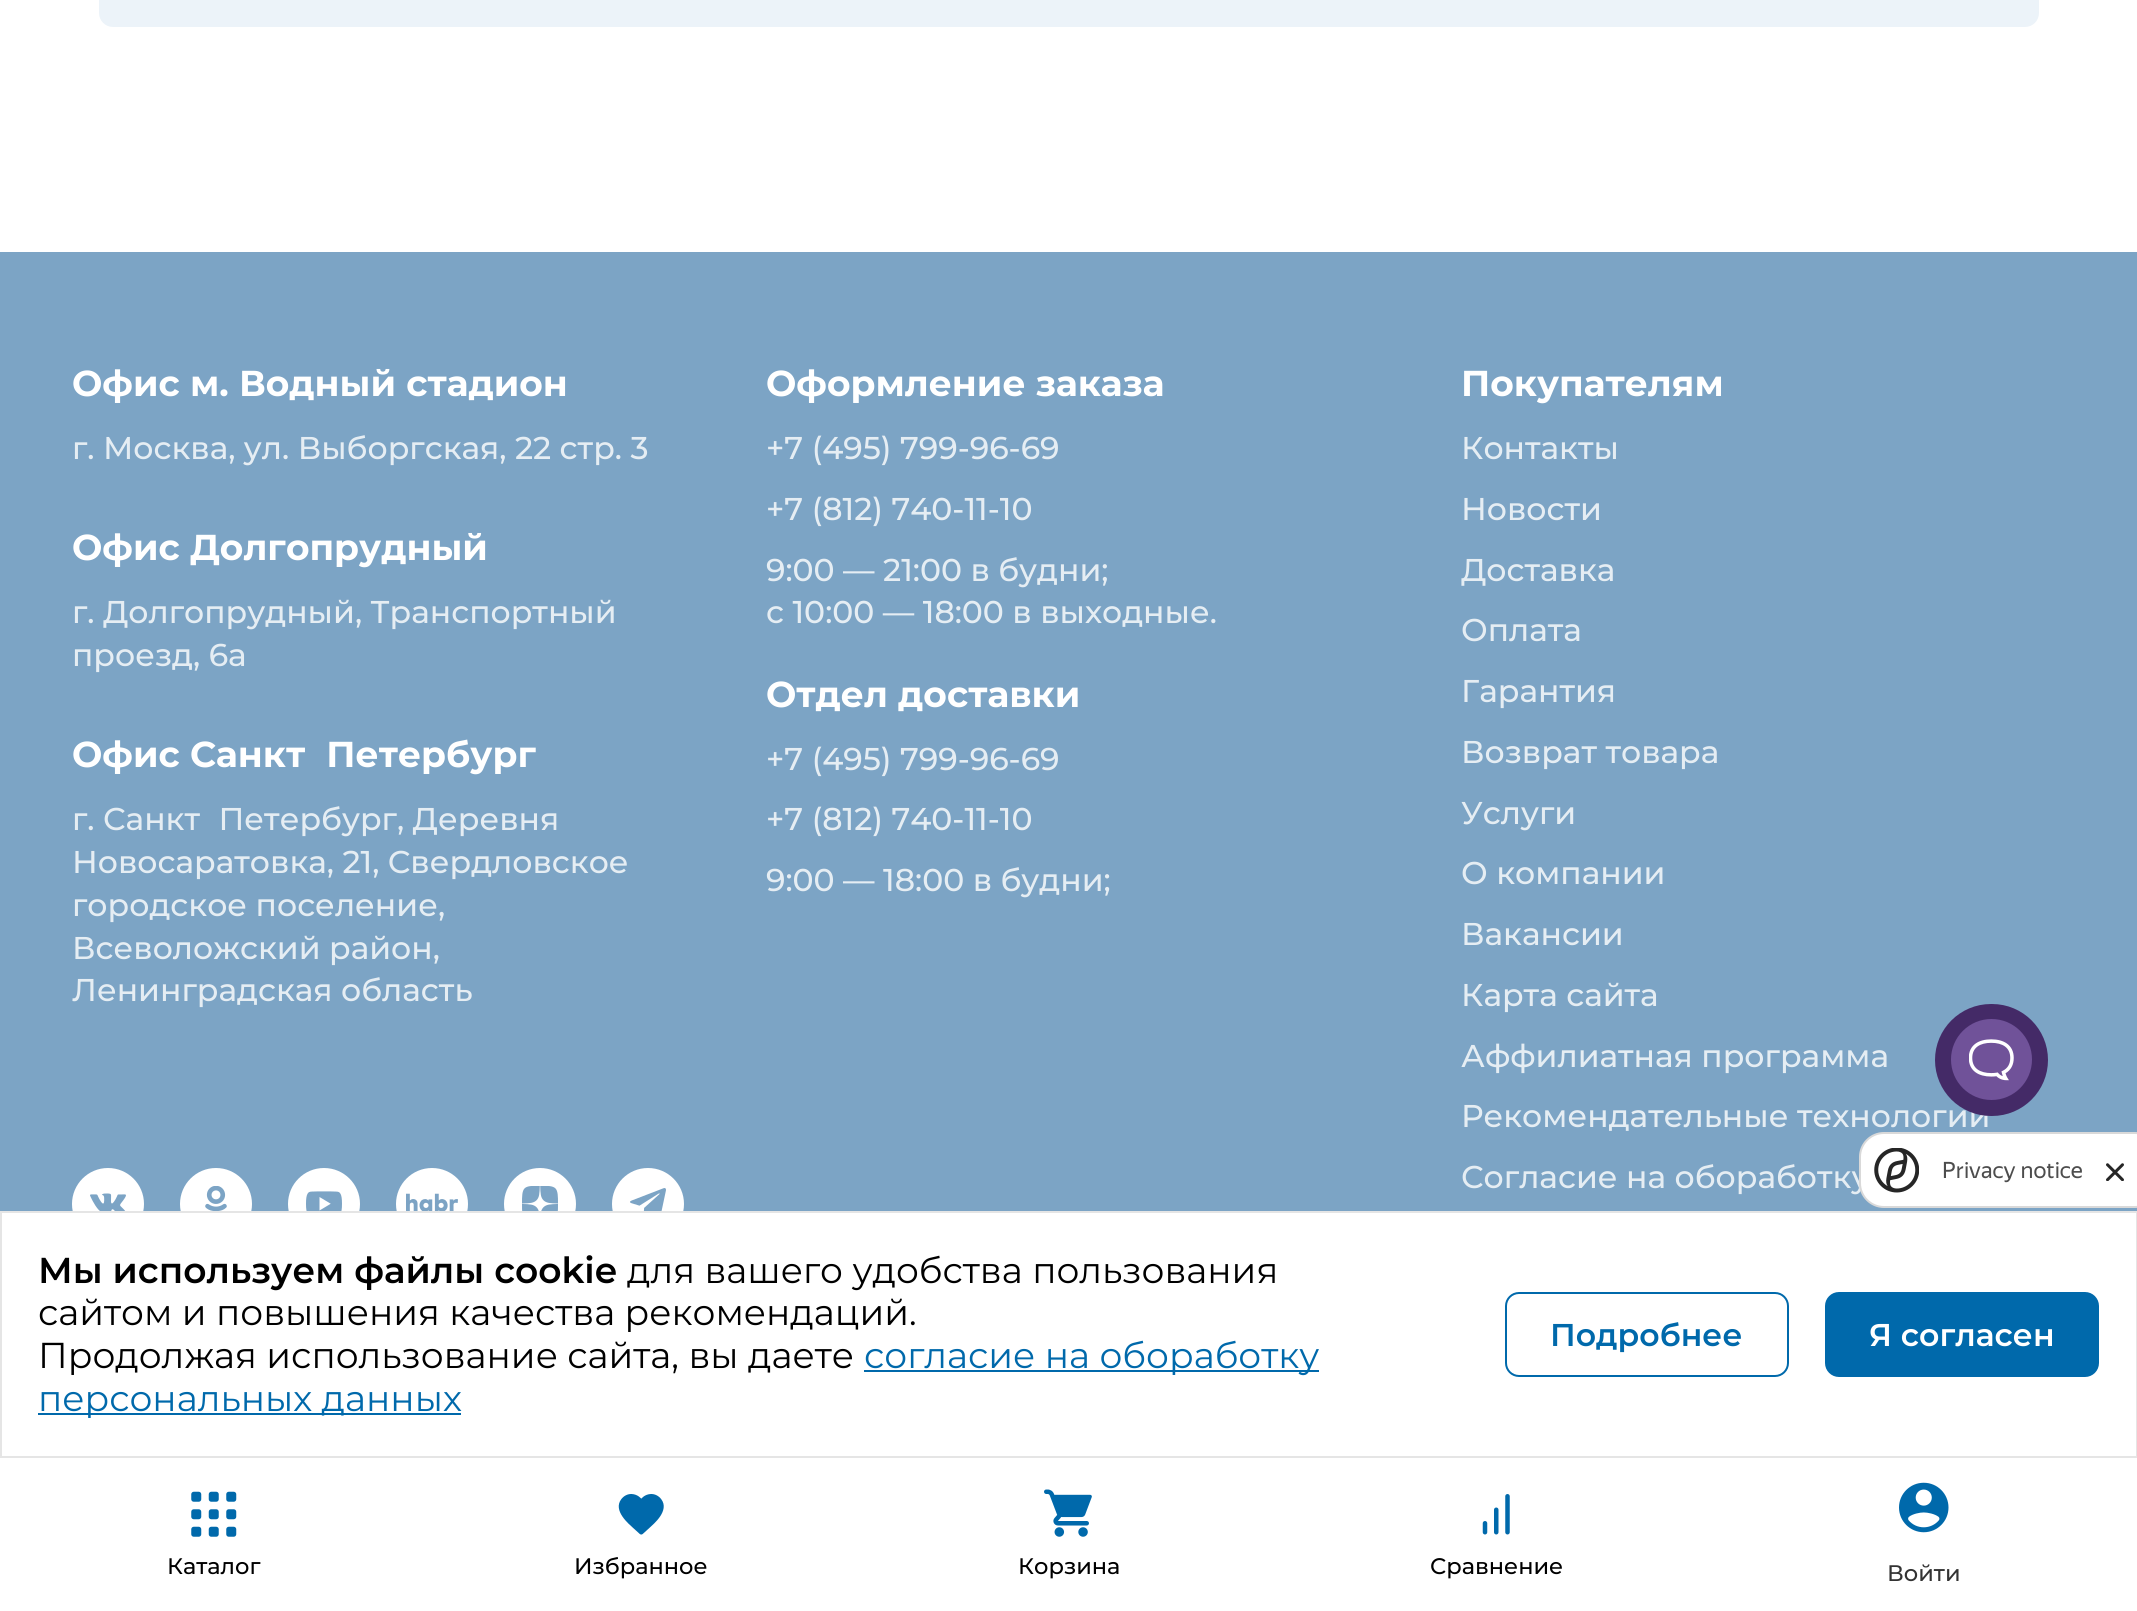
import math
import cairo

surface = cairo.ImageSurface(cairo.FORMAT_RGB24, 2137, 1611)
c = cairo.Context(surface)
options = cairo.FontOptions()
options.set_hint_metrics(cairo.HINT_METRICS_OFF)
options.set_hint_style(cairo.HINT_STYLE_NONE)
c.set_font_options(options)
c.set_miter_limit(4)
def C(code):
 c.set_source_rgb(*(v / 255 for v in bytes.fromhex(code[-6:])))
def F(family, size, italic, bold):
 c.select_font_face(family, cairo.FONT_SLANT_ITALIC if italic else cairo.FONT_SLANT_NORMAL, cairo.FONT_WEIGHT_BOLD if bold else cairo.FONT_WEIGHT_NORMAL)
 c.set_font_size(size)
def T(x, y, s):
 c.move_to(x, y)
 c.show_text(s)
def R(x, y, w, h):
 c.rectangle(x, y, w, h)
 c.fill()
def Q(x, y, w, h, r):
 c.new_sub_path()
 for i, (u, v) in enumerate([(x + w - r, y + h - r), (x + r, y + h - r), (x + r, y + r), (x + w - r, y + r)]):
  c.arc(u, v, r, i * math.pi / 2, (i + 1) * math.pi / 2)
 c.close_path()
def I(path, x, y, w, h):
 c.save()
 c.set_source_surface(cairo.ImageSurface.create_from_png(path), x, y)
 c.rectangle(x, y, w, h)
 c.fill()
 c.restore()
C('ffffff')
c.paint()
C('7ca4c5')
R(0,252,2137,959)
F('Montserrat',36,0,1)
C('ffffff')
T(72,396,'Офис м. Водный стадион')
F('Montserrat Medium',31.5,0,0)
C('e5edf3')
T(72,459,'г. Москва, ул. Выборгская, 22 стр. 3')
F('Montserrat',36,0,1)
C('ffffff')
T(766,396,'Оформление заказа')
F('Montserrat Medium',31.5,0,0)
C('e5edf3')
T(766,459,'+7 (495) 799-96-69')
T(766,520,'+7 (812) 740-11-10')
T(766,581,'9:00 — 21:00 в будни;')
T(766,623,'с 10:00 — 18:00 в выходные.')
F('Montserrat',36,0,1)
C('ffffff')
T(1461,396,'Покупателям')
F('Montserrat Medium',31.5,0,0)
C('e5edf3')
T(1461,459,'Контакты')
T(1461,520,'Новости')
T(1461,581,'Доставка')
T(1461,641,'Оплата')
T(1461,702,'Гарантия')
T(1461,763,'Возврат товара')
T(1461,824,'Услуги')
T(1461,884,'О компании')
T(1461,945,'Вакансии')
T(1461,1006,'Карта сайта')
T(1461,1067,'Аффилиатная программа')
T(1461,1127,'Рекомендательные технологии')
T(1461,1188,'Согласие на обоработку')
F('Montserrat',36,0,1)
C('ffffff')
T(72,560,'Офис Долгопрудный')
F('Montserrat Medium',31.5,0,0)
C('e5edf3')
T(72,623,'г. Долгопрудный, Транспортный')
T(72,666,'проезд, 6а')
F('Montserrat',36,0,1)
C('ffffff')
T(72,767,'Офис Санкт‑Петербург')
F('Montserrat Medium',31.5,0,0)
C('e5edf3')
T(72,830,'г. Санкт‑Петербург, Деревня')
T(72,873,'Новосаратовка, 21, Свердловское')
T(72,916,'городское поселение,')
T(72,959,'Всеволожский район,')
T(72,1001,'Ленинградская область')
F('Montserrat',36,0,1)
C('ffffff')
T(766,707,'Отдел доставки')
F('Montserrat Medium',31.5,0,0)
C('e5edf3')
T(766,770,'+7 (495) 799-96-69')
T(766,830,'+7 (812) 740-11-10')
T(766,891,'9:00 — 18:00 в будни;')
C('ffffff')
c.new_path()
c.arc(108,1204,36,0,2 * math.pi)
c.fill()
I('1.png',90,1193,36,18)
c.arc(216,1204,36,0,2 * math.pi)
c.fill()
I('2.png',205,1186,22,25)
c.arc(324,1204,36,0,2 * math.pi)
c.fill()
I('3.png',306,1191,36,20)
c.arc(432,1204,36,0,2 * math.pi)
c.fill()
I('4.png',406,1193,52,18)
c.arc(540,1204,36,0,2 * math.pi)
c.fill()
I('5.png',522,1186,36,25)
c.arc(648,1204,36,0,2 * math.pi)
c.fill()
I('6.png',630,1188,36,23)
C('442a67')
Q(1935,1004,113,112,56)
c.fill()
C('705299')
c.arc(1991.5,1059.5,40.5,0,2 * math.pi)
c.fill()
I('7.png',1969,1039,45,42)
C('ffffff')
Q(1860,1133,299,74,24)
c.fill_preserve()
C('d9d9d9')
c.stroke()
I('8.png',1874,1148,45,45)
F('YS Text',22.5,0,0)
C('4d4d4d')
T(1942,1178,'Privacy notice')
I('9.png',2106,1163,18,18)
C('ecf3f9')
Q(99,-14,1940,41,14)
c.fill()
c.rectangle(1,1212,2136,245)
C('e5e5e5')
c.stroke()
F('Montserrat SemiBold',36,0,0)
C('000000')
T(38,1283,'Мы используем файлы cookie')
F('Montserrat',36,0,0)
T(627,1283,'для вашего удобства пользования')
T(38,1325,'сайтом и повышения качества рекомендаций.')
T(38,1368,'Продолжая использование сайта, вы даете')
C('0069ab')
R(864,1370,455,2)
T(864,1368,'согласие на обоработку')
R(38,1413,423,2)
T(38,1411,'персональных данных')
Q(1506,1293,282,83,13)
c.stroke()
F('Montserrat SemiBold',31.5,0,0)
T(1550,1346,'Подробнее')
Q(1826,1293,272,83,13)
c.fill_preserve()
c.stroke()
C('ffffff')
T(1869,1346,'Я согласен')
I('10.png',191,1491,46,46)
F('Montserrat Medium',22.5,0,0)
C('000000')
T(167,1574,'Каталог')
I('11.png',618,1494,46,41)
T(574,1574,'Избранное')
I('12.png',1044,1489,48,48)
T(1018,1574,'Корзина')
I('13.png',1482,1494,28,41)
T(1430,1574,'Сравнение')
I('14.png',1899,1482,50,51)
C('333333')
T(1887,1581,'Войти')
surface.write_to_png('o.png')
